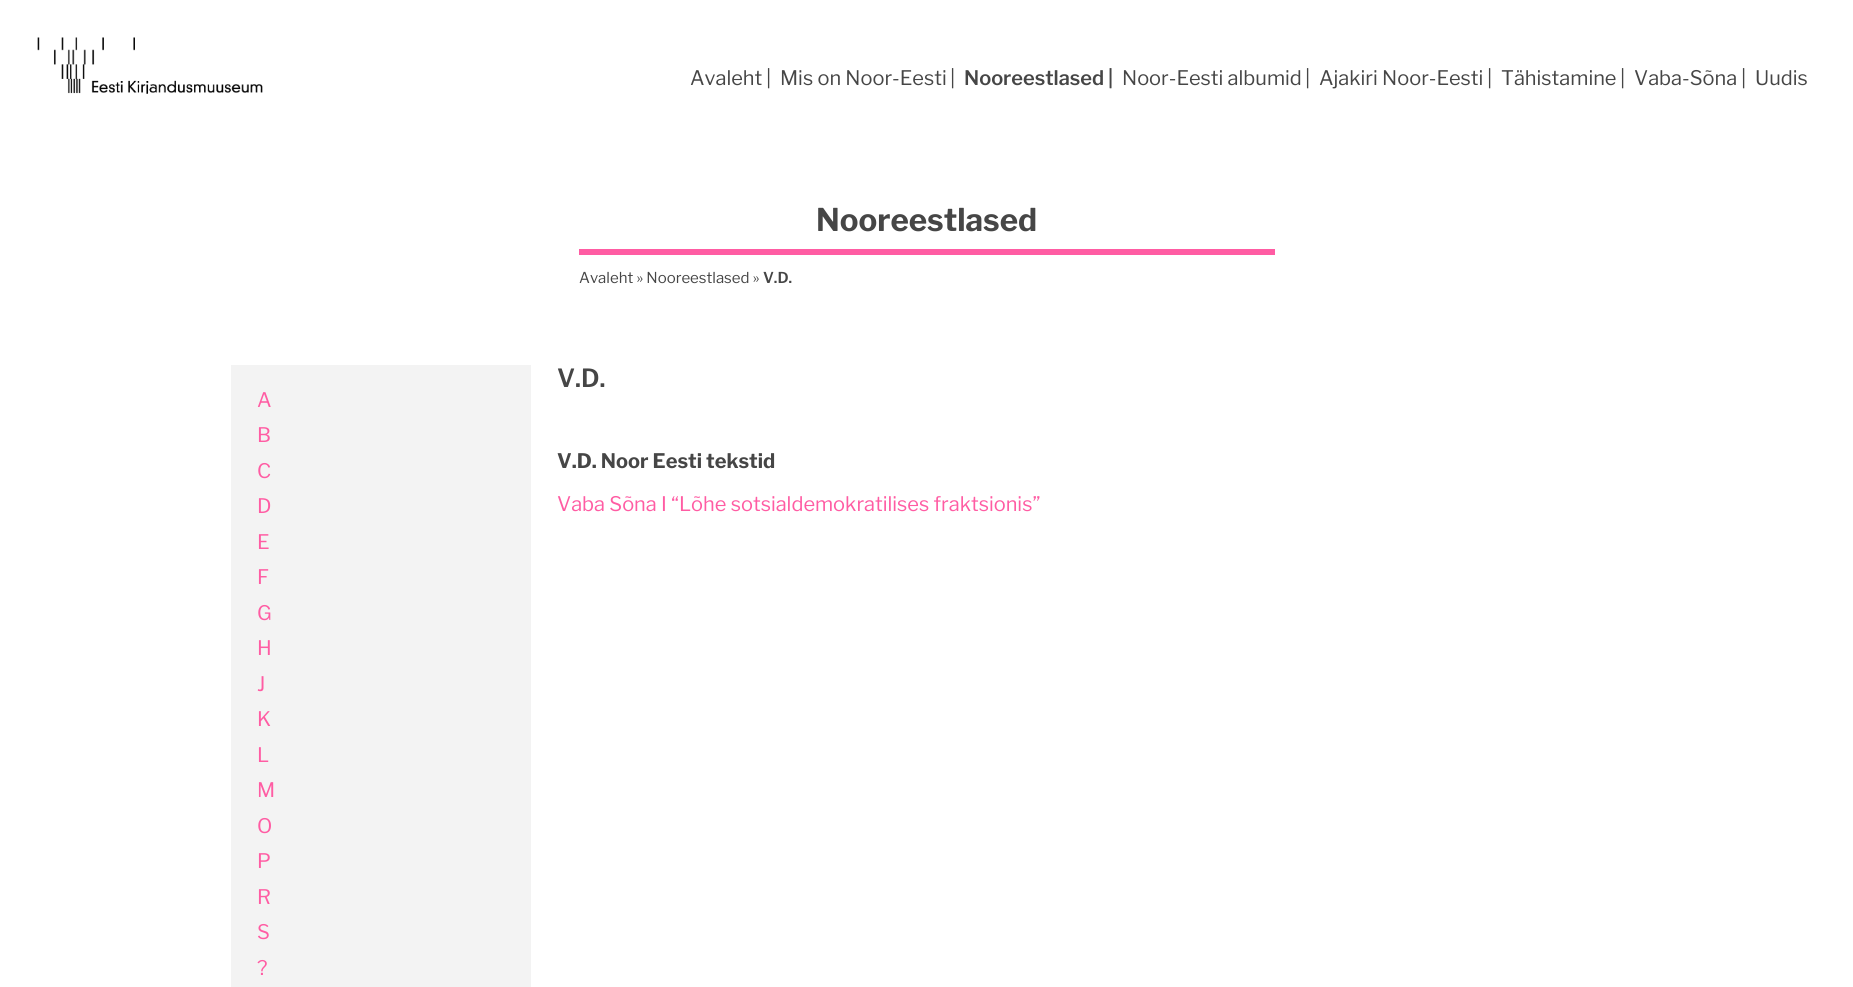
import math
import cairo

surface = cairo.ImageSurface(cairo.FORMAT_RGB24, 1853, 987)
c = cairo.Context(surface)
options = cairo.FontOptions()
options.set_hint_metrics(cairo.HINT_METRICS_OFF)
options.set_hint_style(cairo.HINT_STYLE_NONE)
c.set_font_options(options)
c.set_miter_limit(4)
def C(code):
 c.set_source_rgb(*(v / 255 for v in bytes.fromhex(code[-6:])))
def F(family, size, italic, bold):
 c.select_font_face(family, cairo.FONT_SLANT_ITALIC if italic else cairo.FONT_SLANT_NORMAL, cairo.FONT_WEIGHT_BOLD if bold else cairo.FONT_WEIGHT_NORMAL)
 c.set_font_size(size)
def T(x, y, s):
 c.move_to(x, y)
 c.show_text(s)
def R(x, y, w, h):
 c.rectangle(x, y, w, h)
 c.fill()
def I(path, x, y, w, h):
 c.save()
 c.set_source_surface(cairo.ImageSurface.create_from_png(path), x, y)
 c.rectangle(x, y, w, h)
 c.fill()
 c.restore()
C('ffffff')
c.paint()
I('1.png',37,37,226,57)
F('Libre Franklin',20,0,0)
C('464646')
T(690,85,'Avaleht')
T(766,85,'|')
T(780,85,'Mis on Noor-Eesti')
T(950,85,'|')
F('Libre Franklin SemiBold',20,0,0)
T(964,85,'Nooreestlased')
T(1108,85,'|')
F('Libre Franklin',20,0,0)
T(1122,85,'Noor-Eesti albumid')
T(1305,85,'|')
T(1319,85,'Ajakiri Noor-Eesti')
T(1487,85,'|')
T(1501,85,'Tähistamine')
T(1620,85,'|')
T(1634,85,'Vaba-Sõna')
T(1741,85,'|')
T(1755,85,'Uudis')
F('Libre Franklin',31.25,0,1)
T(816,231,'Nooreestlased')
C('ff5ca3')
R(579,249,696,6)
F('Libre Franklin',15,0,0)
C('464646')
T(579,283,'Avaleht » Nooreestlased »')
F('Libre Franklin SemiBold',15,0,0)
T(763,283,'V.D.')
C('f3f3f3')
R(231,365,300,622)
F('Libre Franklin',20,0,0)
C('ff5ca3')
T(257,407,'A')
T(257,442,'B')
T(257,478,'C')
T(257,513,'D')
T(257,549,'E')
T(257,584,'F')
T(257,620,'G')
T(257,655,'H')
T(257,691,'J')
T(257,726,'K')
T(257,762,'L')
T(257,797,'M')
T(257,833,'O')
T(257,868,'P')
T(257,904,'R')
T(257,939,'S')
T(257,975,'?')
F('Libre Franklin SemiBold',25,0,0)
C('464646')
T(557,387,'V.D.')
F('Libre Franklin',20,0,1)
T(557,468,'V.D. Noor Eesti tekstid')
F('Libre Franklin',20,0,0)
C('ff5ca3')
T(557,511,'Vaba Sõna I “Lõhe sotsialdemokratilises fraktsionis”')
surface.write_to_png('o.png')
